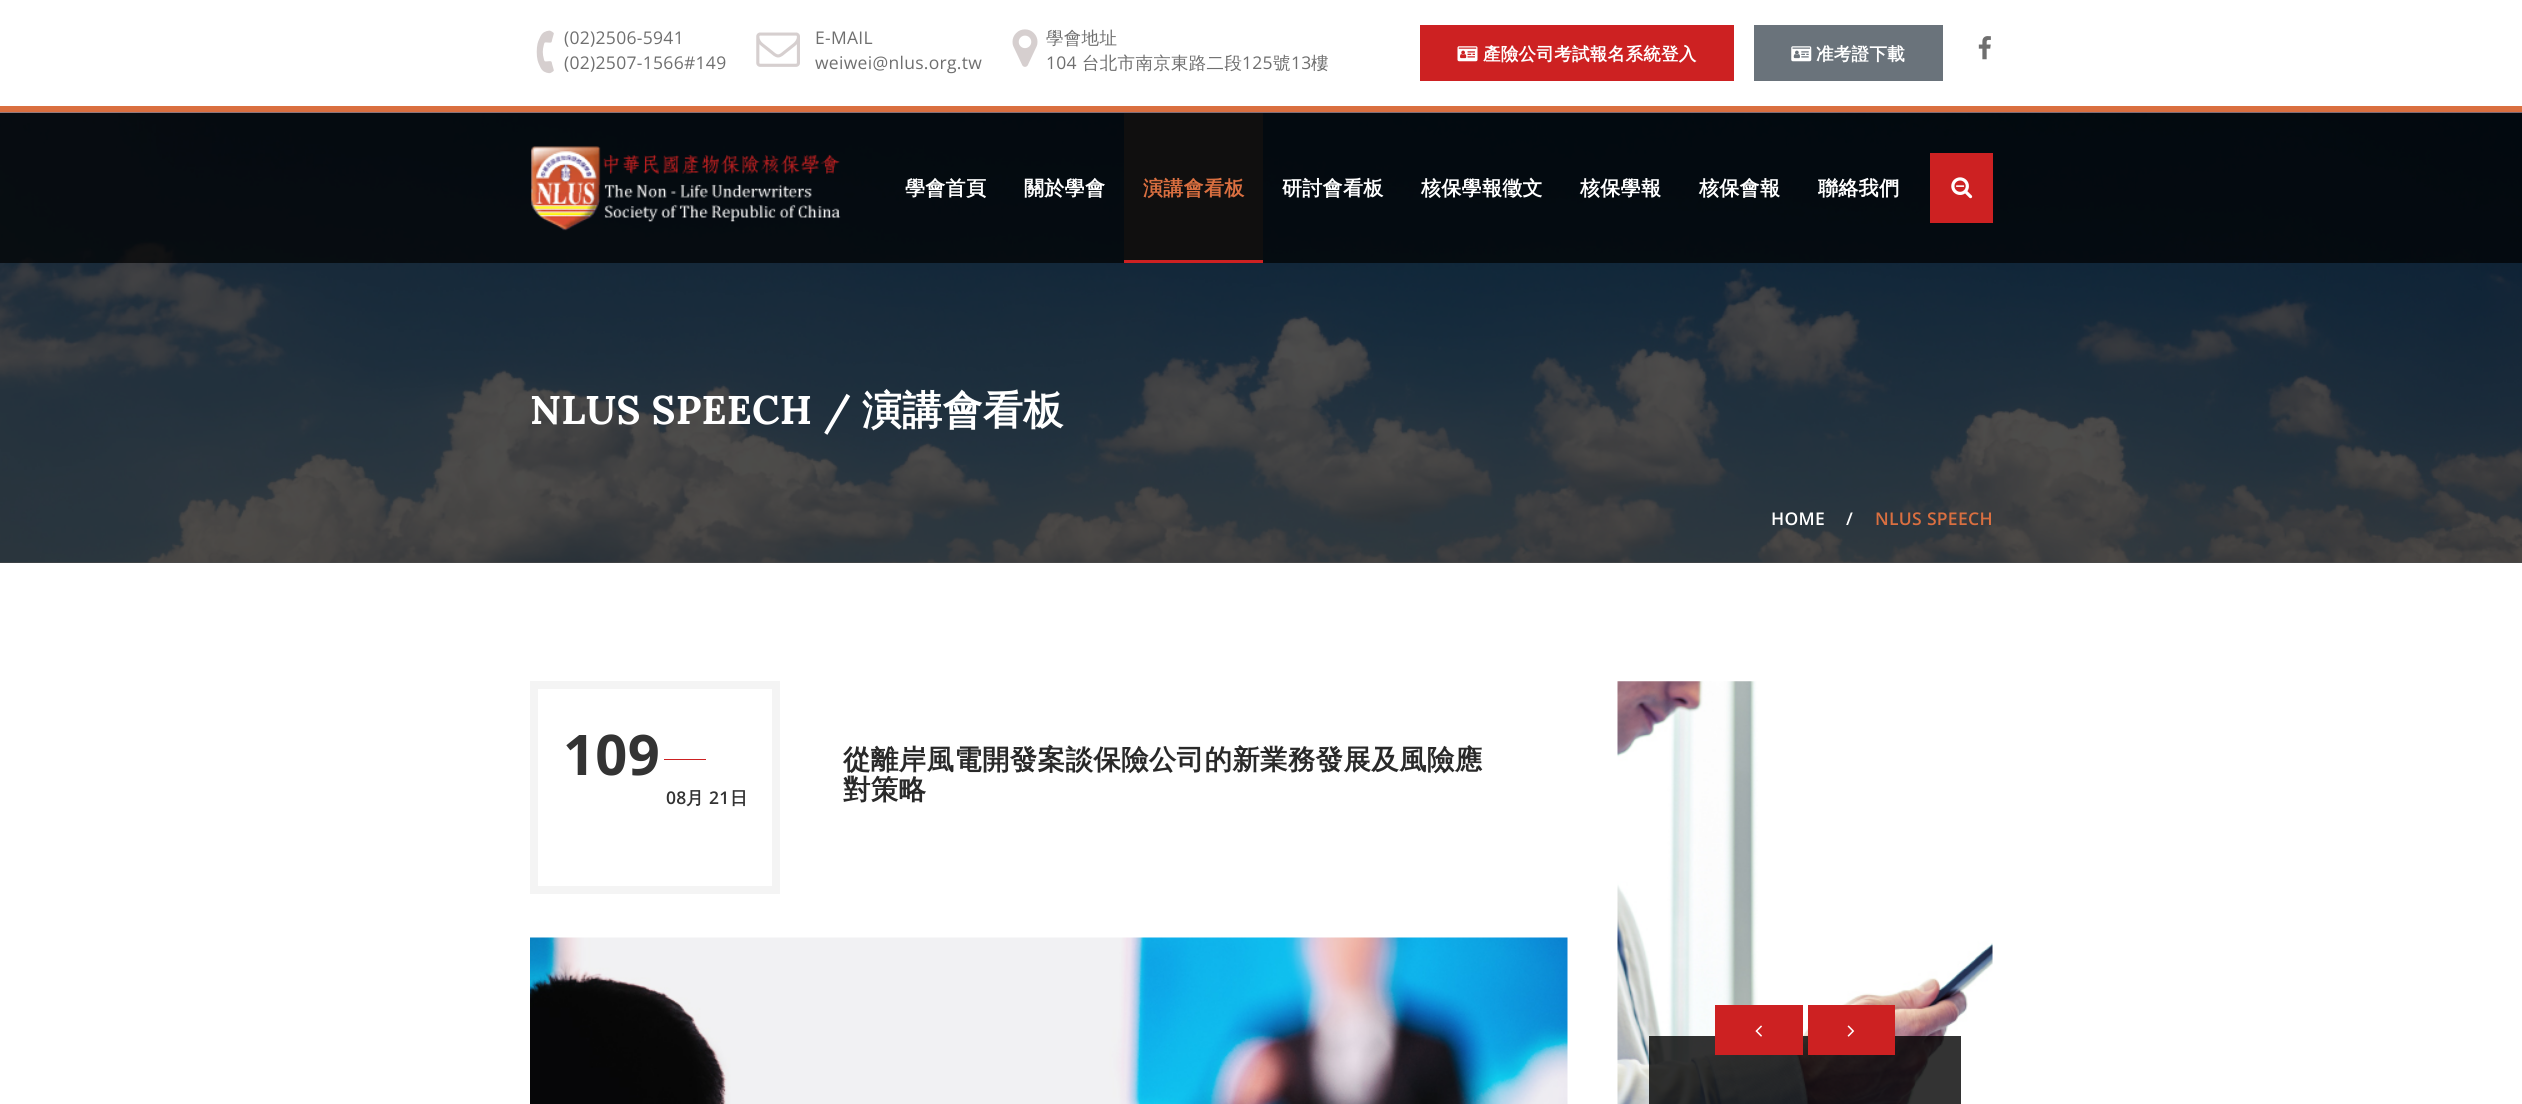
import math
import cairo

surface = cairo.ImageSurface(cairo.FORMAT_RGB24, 2522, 1104)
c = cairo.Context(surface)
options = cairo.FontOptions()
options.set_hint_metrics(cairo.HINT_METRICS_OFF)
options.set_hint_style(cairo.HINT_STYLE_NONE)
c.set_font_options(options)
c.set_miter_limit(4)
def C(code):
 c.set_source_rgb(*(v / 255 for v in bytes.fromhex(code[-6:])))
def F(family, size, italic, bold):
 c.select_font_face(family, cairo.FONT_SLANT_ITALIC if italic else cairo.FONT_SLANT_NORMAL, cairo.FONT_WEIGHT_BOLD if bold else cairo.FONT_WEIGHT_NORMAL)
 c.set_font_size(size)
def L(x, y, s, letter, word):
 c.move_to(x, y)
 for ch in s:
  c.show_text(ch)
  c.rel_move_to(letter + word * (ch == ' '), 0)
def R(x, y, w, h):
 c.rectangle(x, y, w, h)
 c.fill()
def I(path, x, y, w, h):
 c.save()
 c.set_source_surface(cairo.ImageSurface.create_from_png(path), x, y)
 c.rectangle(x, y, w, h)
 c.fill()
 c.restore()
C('ffffff')
c.paint()
C('4d4d4d')
R(0,562,2522,1)
C('da6f40')
R(0,106,2522,7)
I('1.png',536,30,18,44)
F('Open Sans',17.5,0,0)
C('6f6f6f')
L(564,44,'(02)2506-5941',.3,0)
L(564,69,'(02)2507-1566#149',.3,0)
I('2.png',756,32,44,35)
L(815,44,'E-MAIL',.3,0)
L(815,69,'weiwei@nlus.org.tw',.3,0)
I('3.png',1012,29,26,38)
F('WenQuanYi Zen Hei Medium',17.5,0,0)
L(1046,44,'學會地址',.3,0)
F('Open Sans',17.5,0,0)
L(1046,69,'104',.3,0)
F('WenQuanYi Zen Hei Medium',17.5,0,0)
L(1082,69,'台北市南京東路二段',.3,0)
F('Open Sans',17.5,0,0)
L(1242,69,'125',.3,0)
F('WenQuanYi Zen Hei Medium',17.5,0,0)
L(1273,69,'號',.3,0)
F('Open Sans',17.5,0,0)
L(1291,69,'13',.3,0)
F('WenQuanYi Zen Hei Medium',17.5,0,0)
L(1311,69,'樓',.3,0)
C('cd2122')
R(1420,25,314,56)
I('4.png',1457,46,21,16)
F('WenQuanYi Zen Hei',17.5,0,1)
C('ffffff')
L(1483,60,'產險公司考試報名系統登入',.3,0)
C('6a737b')
R(1754,25,189,56)
I('5.png',1791,46,21,16)
C('ffffff')
L(1816,60,'准考證下載',.3,0)
I('6.png',1978,36,13,24)
I('9.png',0,112,2522,451)
c.set_source_rgba(0,0,0,0.7)
R(0,113,2522,150)
I('7.png',531,146,310,85)
F('WenQuanYi Zen Hei',20,0,1)
C('ffffff')
L(905,195,'學會首頁',.3,0)
L(1024,195,'關於學會',.3,0)
C('100f0f')
R(1124,113,139,147)
C('da6f40')
L(1143,195,'演講會看板',.3,0)
C('cd2122')
R(1124,260,139,3)
C('ffffff')
L(1282,195,'研討會看板',.3,0)
L(1421,195,'核保學報徵文',.3,0)
L(1580,195,'核保學報',.3,0)
L(1699,195,'核保會報',.3,0)
L(1818,195,'聯絡我們',.3,0)
C('cd2122')
R(1930,153,63,70)
I('8.png',1951,177,22,22)
F('Lora',40,0,1)
C('ffffff')
L(530,424,'NLUS SPEECH /',.3,0)
F('WenQuanYi Zen Hei',40,0,1)
L(862,424,'演講會看板',.3,0)
F('Open Sans SemiBold',17.5,0,0)
L(1771,525,'HOME',.3,0)
L(1846,525,'/',.3,0)
C('da6f40')
L(1875,525,'NLUS SPEECH',.3,0)
c.rectangle(534,685,242,205)
C('f4f4f4')
c.set_line_width(8)
c.stroke()
F('Open Sans',56,0,1)
C('333333')
L(563,775,'109',.3,0)
C('cd2122')
R(664,759,42,1)
F('Open Sans SemiBold',17.5,0,0)
C('333333')
L(666,804,'08',.3,0)
F('WenQuanYi Zen Hei',17.5,0,1)
L(686,804,'月',.3,0)
F('Open Sans SemiBold',17.5,0,0)
L(709,804,'21',.3,0)
F('WenQuanYi Zen Hei',17.5,0,1)
L(730,804,'日',.3,0)
F('WenQuanYi Zen Hei',27.5,0,1)
C('292929')
L(843,769,'從離岸風電開發案談保險公司的新業務發展及風險應',.3,0)
L(843,799,'對策略',.3,0)
I('10.png',530,937,1038,167)
I('11.png',1617,681,376,423)
c.set_source_rgba(0,0,0,0.8)
R(1649,1036,312,68)
C('cd2122')
R(1715,1005,88,50)
I('12.png',1755,1025,7,12)
R(1808,1005,87,50)
I('13.png',1847,1025,8,12)
surface.write_to_png('o.png')
